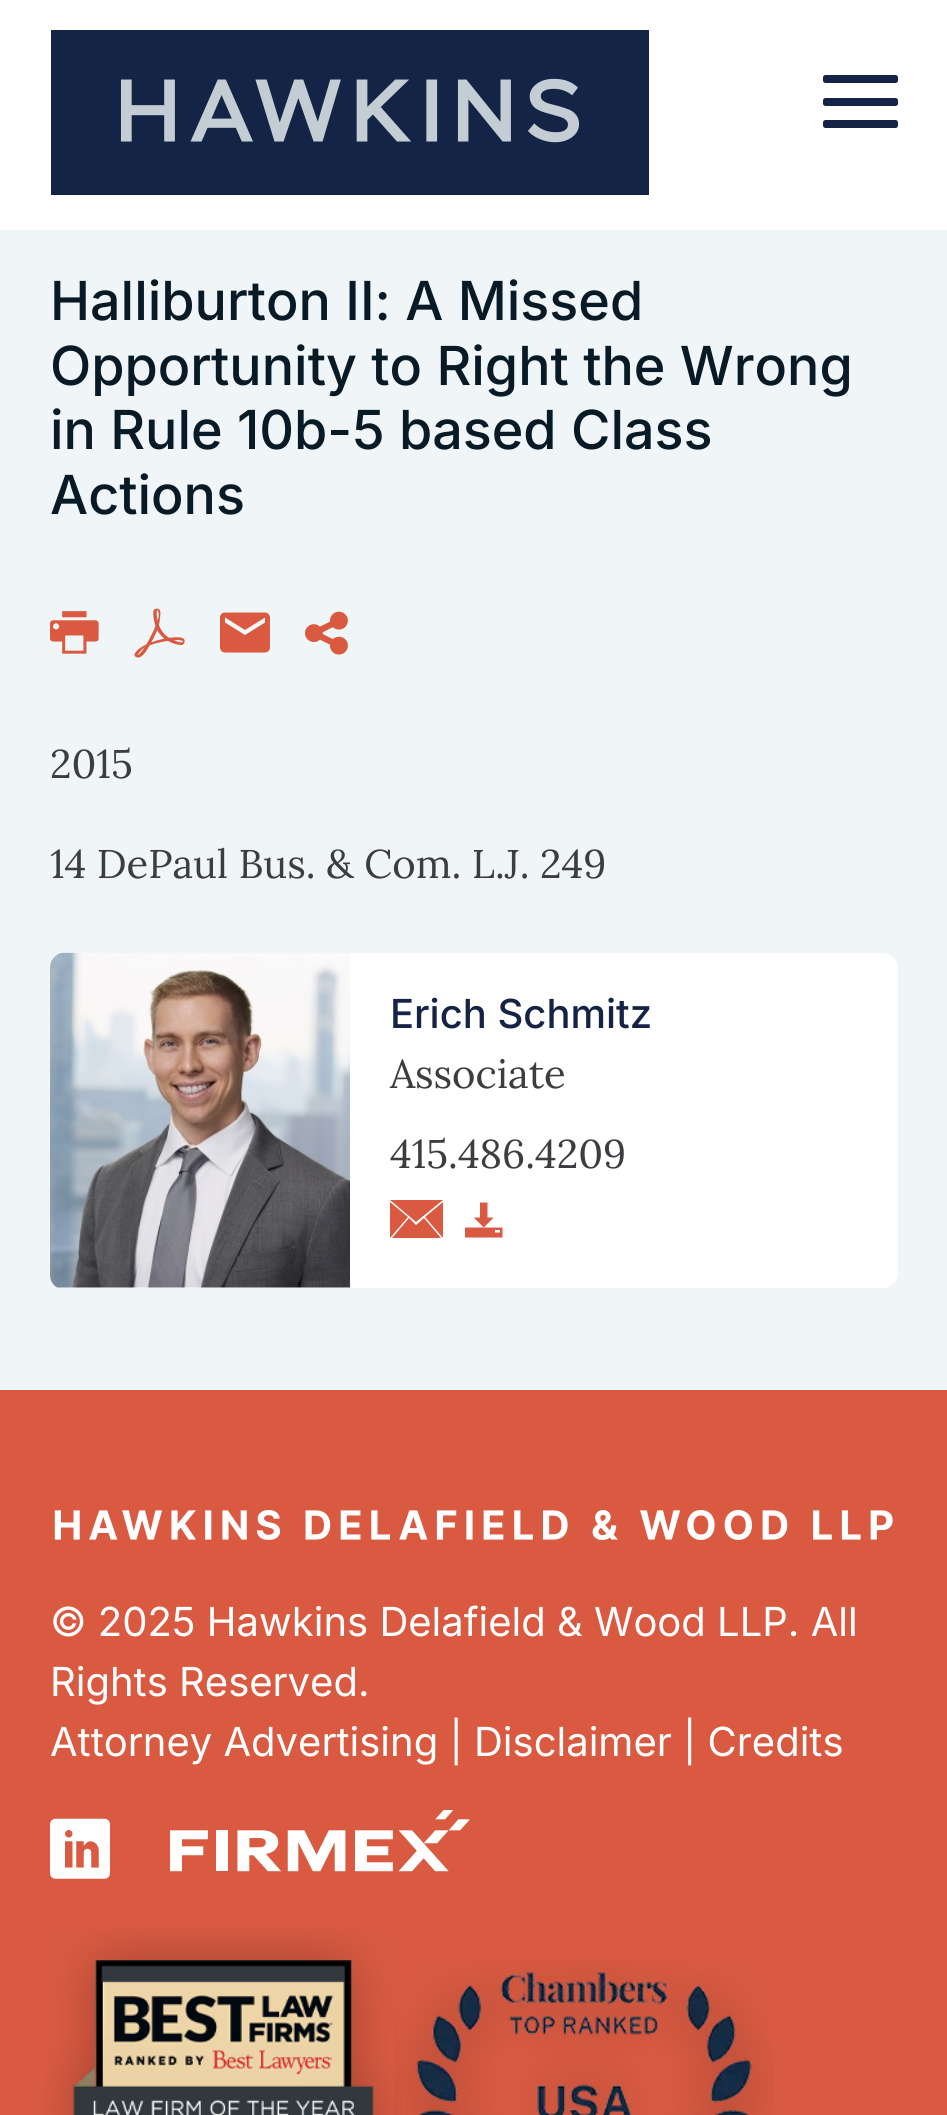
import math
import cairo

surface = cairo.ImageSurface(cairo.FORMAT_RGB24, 947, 2115)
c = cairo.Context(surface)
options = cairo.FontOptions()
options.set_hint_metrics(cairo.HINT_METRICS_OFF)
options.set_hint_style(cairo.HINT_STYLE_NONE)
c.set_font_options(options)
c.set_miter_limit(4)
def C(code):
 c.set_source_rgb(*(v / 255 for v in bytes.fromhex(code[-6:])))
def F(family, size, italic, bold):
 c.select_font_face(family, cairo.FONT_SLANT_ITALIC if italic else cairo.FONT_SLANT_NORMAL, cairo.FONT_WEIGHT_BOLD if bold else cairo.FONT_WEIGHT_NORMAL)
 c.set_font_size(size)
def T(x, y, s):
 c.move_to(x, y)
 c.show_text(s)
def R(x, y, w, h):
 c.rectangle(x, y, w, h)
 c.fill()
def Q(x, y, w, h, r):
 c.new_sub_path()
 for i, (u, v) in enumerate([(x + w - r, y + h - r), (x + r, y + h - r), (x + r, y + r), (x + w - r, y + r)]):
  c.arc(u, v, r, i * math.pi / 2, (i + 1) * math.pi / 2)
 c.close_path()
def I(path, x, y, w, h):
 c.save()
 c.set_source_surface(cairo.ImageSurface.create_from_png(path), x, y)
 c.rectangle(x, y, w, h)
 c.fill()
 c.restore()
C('f0f5f7')
c.paint()
C('ffffff')
R(0,0,947,230)
I('1.png',51,30,598,165)
C('152446')
Q(823,75,75,8,2.5)
c.fill()
Q(823,98,75,8,2.5)
c.fill()
Q(823,120,75,8,2.5)
c.fill()
F('Inter Medium',53.8,0,0)
C('071a26')
T(50,320,'Halliburton II: A Missed')
T(50,385,'Opportunity to Right the Wrong')
T(50,449,'in Rule 10b-5 based Class')
T(50,514,'Actions')
I('2.png',50,611,49,43)
I('3.png',134,608,51,50)
I('4.png',220,612,50,41)
I('5.png',305,611,43,44)
F('Lora',40,0,0)
C('3b3d40')
T(50,778,'2015')
T(50,878,'14 DePaul Bus. & Com. L.J. 249')
C('ffffff')
Q(50,953,848,335,15)
c.fill()
I('6.png',50,952,300,336)
F('Inter Medium',40,0,0)
C('152446')
T(390,1028,'Erich Schmitz')
F('Lora',40,0,0)
C('3b3d40')
T(390,1088,'Associate')
T(390,1168,'415.486.4209')
C('d95a41')
c.new_path()
c.move_to(416,1225)
c.line_to(409,1218)
c.line_to(392,1238)
c.line_to(441,1238)
c.line_to(424,1218)
c.close_path()
c.move_to(443,1200)
c.line_to(390,1200)
c.line_to(416,1222)
c.close_path()
c.move_to(425,1217)
c.line_to(443,1238)
c.line_to(443,1202)
c.close_path()
c.move_to(390,1202)
c.line_to(390,1238)
c.line_to(408,1217)
c.close_path()
c.fill()
I('7.png',465,1202,38,36)
R(0,1390,947,725)
I('8.png',54,1510,839,30)
F('Inter',40,0,0)
C('ffffff')
T(50,1636,'© 2025 Hawkins Delafield & Wood LLP. All')
T(50,1696,'Rights Reserved.')
T(50,1756,'Attorney Advertising | Disclaimer | Credits')
I('9.png',50,1818,60,61)
I('10.png',170,1810,300,62)
I('11.png',44,1927,358,188)
I('12.png',394,1959,380,156)
surface.write_to_png('o.png')
